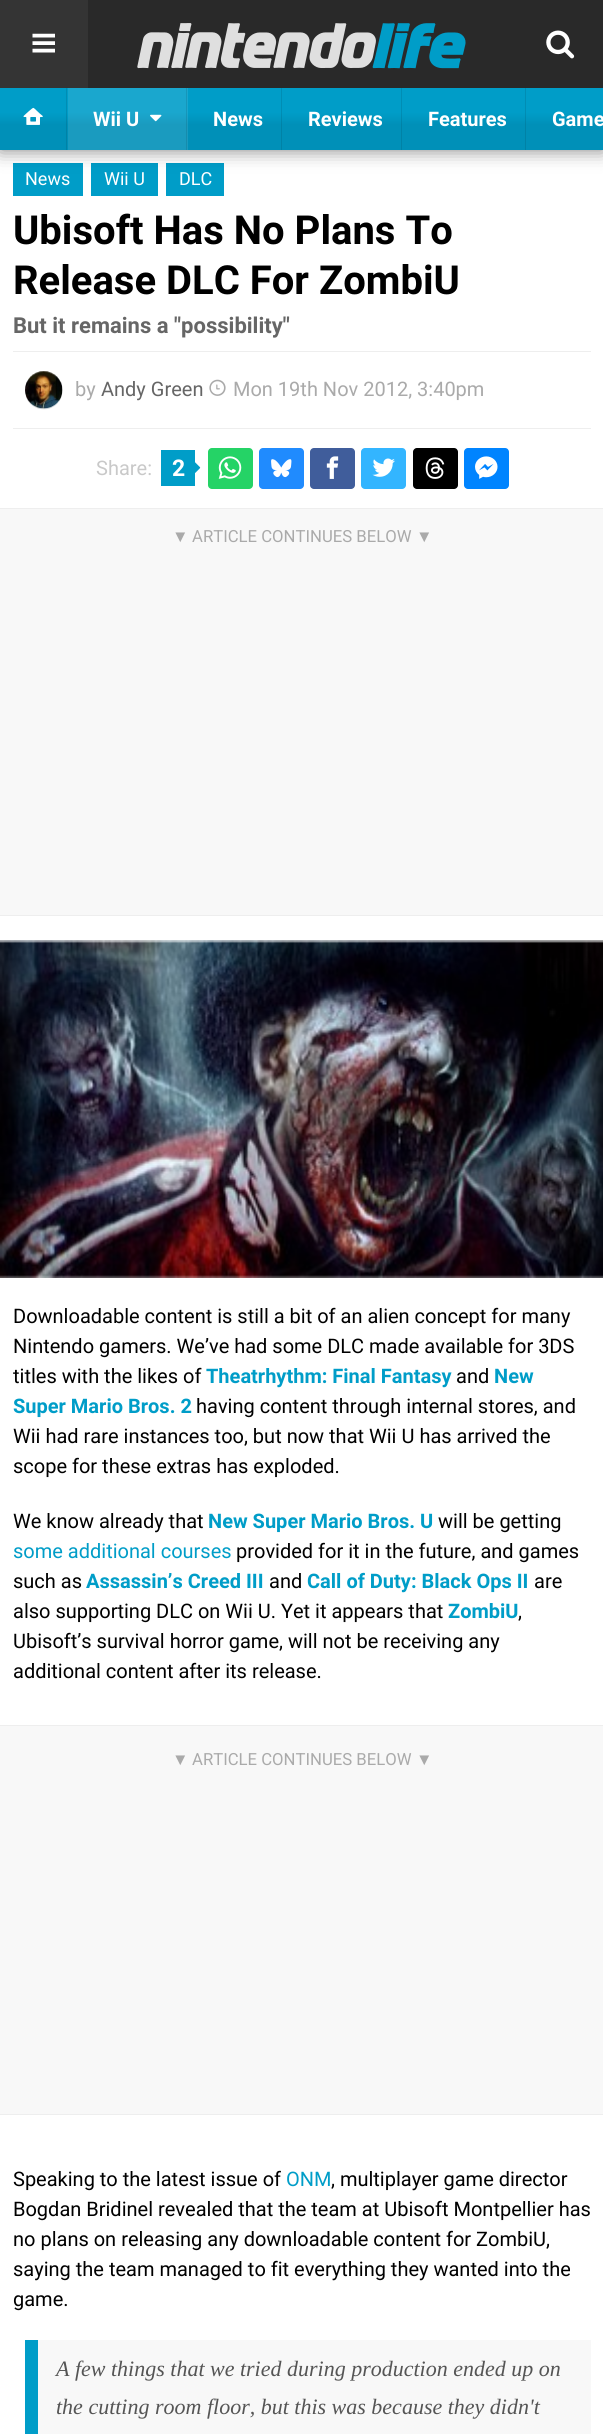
import math
import cairo

surface = cairo.ImageSurface(cairo.FORMAT_RGB24, 603, 2434)
c = cairo.Context(surface)
options = cairo.FontOptions()
options.set_hint_metrics(cairo.HINT_METRICS_OFF)
options.set_hint_style(cairo.HINT_STYLE_NONE)
c.set_font_options(options)
c.set_miter_limit(4)
def C(code):
 c.set_source_rgb(*(v / 255 for v in bytes.fromhex(code[-6:])))
def F(family, size, italic, bold):
 c.select_font_face(family, cairo.FONT_SLANT_ITALIC if italic else cairo.FONT_SLANT_NORMAL, cairo.FONT_WEIGHT_BOLD if bold else cairo.FONT_WEIGHT_NORMAL)
 c.set_font_size(size)
def T(x, y, s):
 c.move_to(x, y)
 c.show_text(s)
def R(x, y, w, h):
 c.rectangle(x, y, w, h)
 c.fill()
def Q(x, y, w, h, r):
 c.new_sub_path()
 for i, (u, v) in enumerate([(x + w - r, y + h - r), (x + r, y + h - r), (x + r, y + r), (x + w - r, y + r)]):
  c.arc(u, v, r, i * math.pi / 2, (i + 1) * math.pi / 2)
 c.close_path()
def S(x, y, w, h, r, blur, alpha):
 c.push_group_with_content(cairo.CONTENT_ALPHA)
 c.set_operator(cairo.OPERATOR_SOURCE)
 for i in range(15, -16, -2):
  e = blur * i / 6
  if min(w, h) + 2 * e > 0:
   c.set_source_rgba(0, 0, 0, alpha * math.erfc((i - 1) / 8.5) / 2)
   Q(x - e, y - e, w + 2 * e, h + 2 * e, max(0, min(r + e + blur * .6, min(w, h) / 2 + e)))
   c.fill()
 c.mask(c.pop_group())
def I(path, x, y, w, h):
 c.save()
 c.set_source_surface(cairo.ImageSurface.create_from_png(path), x, y)
 c.rectangle(x, y, w, h)
 c.fill()
 c.restore()
C('ffffff')
c.paint()
C('009dc8')
R(13,163,70,33)
R(91,163,67,33)
R(166,163,58,33)
C('000000')
S(0,0,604,150,0,9.5,.5)
C('292929')
R(88,0,515,88)
C('343434')
R(0,0,88,88)
I('1.png',32,33,23,20)
I('2.png',546,30,29,29)
I('3.png',137,23,329,46)
gradient = cairo.LinearGradient(302,87,302,150)
gradient.add_color_stop_rgba(0,0,0.616,0.784,1)
gradient.add_color_stop_rgba(.4,0,0.616,0.784,1)
gradient.add_color_stop_rgba(.6,0,0.565,0.722,1)
gradient.add_color_stop_rgba(1,0,0.565,0.722,1)
c.set_source(gradient)
R(0,88,603,62)
gradient = cairo.LinearGradient(302,87,302,150)
gradient.add_color_stop_rgba(0,0,0.553,0.706,1)
gradient.add_color_stop_rgba(.4,0,0.553,0.706,1)
gradient.add_color_stop_rgba(.6,0,0.51,0.651,1)
gradient.add_color_stop_rgba(1,0,0.51,0.651,1)
c.set_source(gradient)
R(525,88,1,62)
R(401,88,1,62)
R(281,88,1,62)
gradient = cairo.LinearGradient(302,87,302,150)
gradient.add_color_stop_rgba(0,0.102,0.655,0.808,1)
gradient.add_color_stop_rgba(.4,0.102,0.655,0.808,1)
gradient.add_color_stop_rgba(.6,0.102,0.608,0.749,1)
gradient.add_color_stop_rgba(1,0.102,0.608,0.749,1)
c.set_source(gradient)
R(68,88,120,62)
gradient = cairo.LinearGradient(302,87,302,150)
gradient.add_color_stop_rgba(0,0.09,0.588,0.725,1)
gradient.add_color_stop_rgba(.4,0.09,0.588,0.725,1)
gradient.add_color_stop_rgba(.6,0.09,0.549,0.675,1)
gradient.add_color_stop_rgba(1,0.09,0.549,0.675,1)
c.set_source(gradient)
R(186,88,1,62)
gradient = cairo.LinearGradient(302,87,302,150)
gradient.add_color_stop_rgba(0,0,0.553,0.706,1)
gradient.add_color_stop_rgba(.4,0,0.553,0.706,1)
gradient.add_color_stop_rgba(.6,0,0.51,0.651,1)
gradient.add_color_stop_rgba(1,0,0.51,0.651,1)
c.set_source(gradient)
R(66,88,1,62)
I('4.png',23,107,20,18)
F('Roboto',20,0,1)
C('ffffff')
T(93,126,'Wii U')
I('5.png',150,114,12,8)
T(213,126,'News')
T(308,126,'Reviews')
T(428,126,'Features')
T(552,126,'Game')
C('eeeeee')
R(13,351,578,1)
F('Roboto',18,0,0)
C('ffffff')
T(25,185,'News')
T(104,185,'Wii U')
T(179,185,'DLC')
F('Roboto',40,0,1)
C('000000')
T(13,244,'Ubisoft Has No Plans To')
T(13,294,'Release DLC For ZombiU')
F('Roboto',22,0,1)
C('666666')
T(13,333,'But it remains a "possibility"')
I('6.png',25,371,38,39)
F('Roboto',20,0,0)
C('aaaaaa')
T(75,396,'by')
C('666666')
T(101,396,'Andy Green')
I('7.png',209,379,17,17)
C('aaaaaa')
T(233,396,'Mon 19th Nov 2012, 3:40pm')
C('eeeeee')
R(13,428,578,1)
C('c9c9c9')
T(96,475,'Share:')
C('009dc8')
R(161,450,34,36)
F('Roboto',23,0,1)
C('ffffff')
T(172,476,'2')
I('8.png',195,462,6,11)
C('25d366')
Q(208,448,45,41,4)
c.fill()
I('9.png',218,456,24,23)
C('208bfe')
Q(259,448,45,41,4)
c.fill()
I('10.png',271,459,21,19)
C('405d9b')
Q(310,448,45,41,4)
c.fill()
I('11.png',326,456,13,23)
C('33b5ff')
Q(361,448,45,41,4)
c.fill()
I('12.png',372,458,23,19)
C('000000')
Q(413,448,45,41,4)
c.fill()
I('13.png',425,457,20,22)
C('0084ff')
Q(464,448,45,41,4)
c.fill()
I('14.png',475,456,23,23)
C('f8f8f8')
R(0,509,603,406)
C('eeeeee')
R(0,508,603,1)
R(0,915,603,1)
F('Liberation Sans',16.7,0,0)
C('aaaaaa')
T(172,542,'▼')
F('Roboto',16.7,0,0)
T(192,542,'ARTICLE CONTINUES BELOW')
F('Liberation Sans',16.7,0,0)
T(416,542,'▼')
I('15.png',0,940,603,338)
F('Roboto',20,0,0)
C('000000')
T(13,1323,'Downloadable content is still a bit of an alien concept for many')
T(13,1353,'Nintendo gamers. We’ve had some DLC made available for 3DS')
T(13,1383,'titles with the likes of')
F('Roboto',20,0,1)
C('009dc8')
T(206,1383,'Theatrhythm: Final Fantasy')
F('Roboto',20,0,0)
C('000000')
T(456,1383,'and')
F('Roboto',20,0,1)
C('009dc8')
T(494,1383,'New')
T(13,1413,'Super Mario Bros. 2')
F('Roboto',20,0,0)
C('000000')
T(196,1413,'having content through internal stores, and')
T(13,1443,'Wii had rare instances too, but now that Wii U has arrived the')
T(13,1473,'scope for these extras has exploded.')
T(13,1528,'We know already that')
F('Roboto',20,0,1)
C('009dc8')
T(208,1528,'New Super Mario Bros. U')
F('Roboto',20,0,0)
C('000000')
T(438,1528,'will be getting')
C('009dc8')
T(13,1558,'some additional courses')
C('000000')
T(236,1558,'provided for it in the future, and games')
T(13,1588,'such as')
F('Roboto',20,0,1)
C('009dc8')
T(86,1588,'Assassin’s Creed III')
F('Roboto',20,0,0)
C('000000')
T(269,1588,'and')
F('Roboto',20,0,1)
C('009dc8')
T(307,1588,'Call of Duty: Black Ops II')
F('Roboto',20,0,0)
C('000000')
T(534,1588,'are')
T(13,1618,'also supporting DLC on Wii U. Yet it appears that')
F('Roboto',20,0,1)
C('009dc8')
T(448,1618,'ZombiU')
F('Roboto',20,0,0)
C('000000')
T(518,1618,',')
T(13,1648,'Ubisoft’s survival horror game, will not be receiving any')
T(13,1678,'additional content after its release.')
C('f8f8f8')
R(0,1726,603,388)
C('eeeeee')
R(0,1725,603,1)
R(0,2114,603,1)
F('Liberation Sans',16.7,0,0)
C('aaaaaa')
T(172,1765,'▼')
F('Roboto',16.7,0,0)
T(192,1765,'ARTICLE CONTINUES BELOW')
F('Liberation Sans',16.7,0,0)
T(416,1765,'▼')
F('Roboto',20,0,0)
C('000000')
T(13,2186,'Speaking to the latest issue of')
C('009dc8')
T(286,2186,'ONM')
C('000000')
T(331,2186,', multiplayer game director')
T(13,2216,'Bogdan Bridinel revealed that the team at Ubisoft Montpellier has')
T(13,2246,'no plans on releasing any downloadable content for ZombiU,')
T(13,2276,'saying the team managed to fit everything they wanted into the')
T(13,2306,'game.')
C('f8f8f8')
R(38,2340,553,94)
C('009dc8')
R(25,2340,13,94)
F('Liberation Serif',22,1,0)
C('555555')
T(56,2376,'A few things that we tried during production ended up on')
T(56,2414,'the cutting room floor, but this was because they didn\'t')
surface.write_to_png('o.png')
